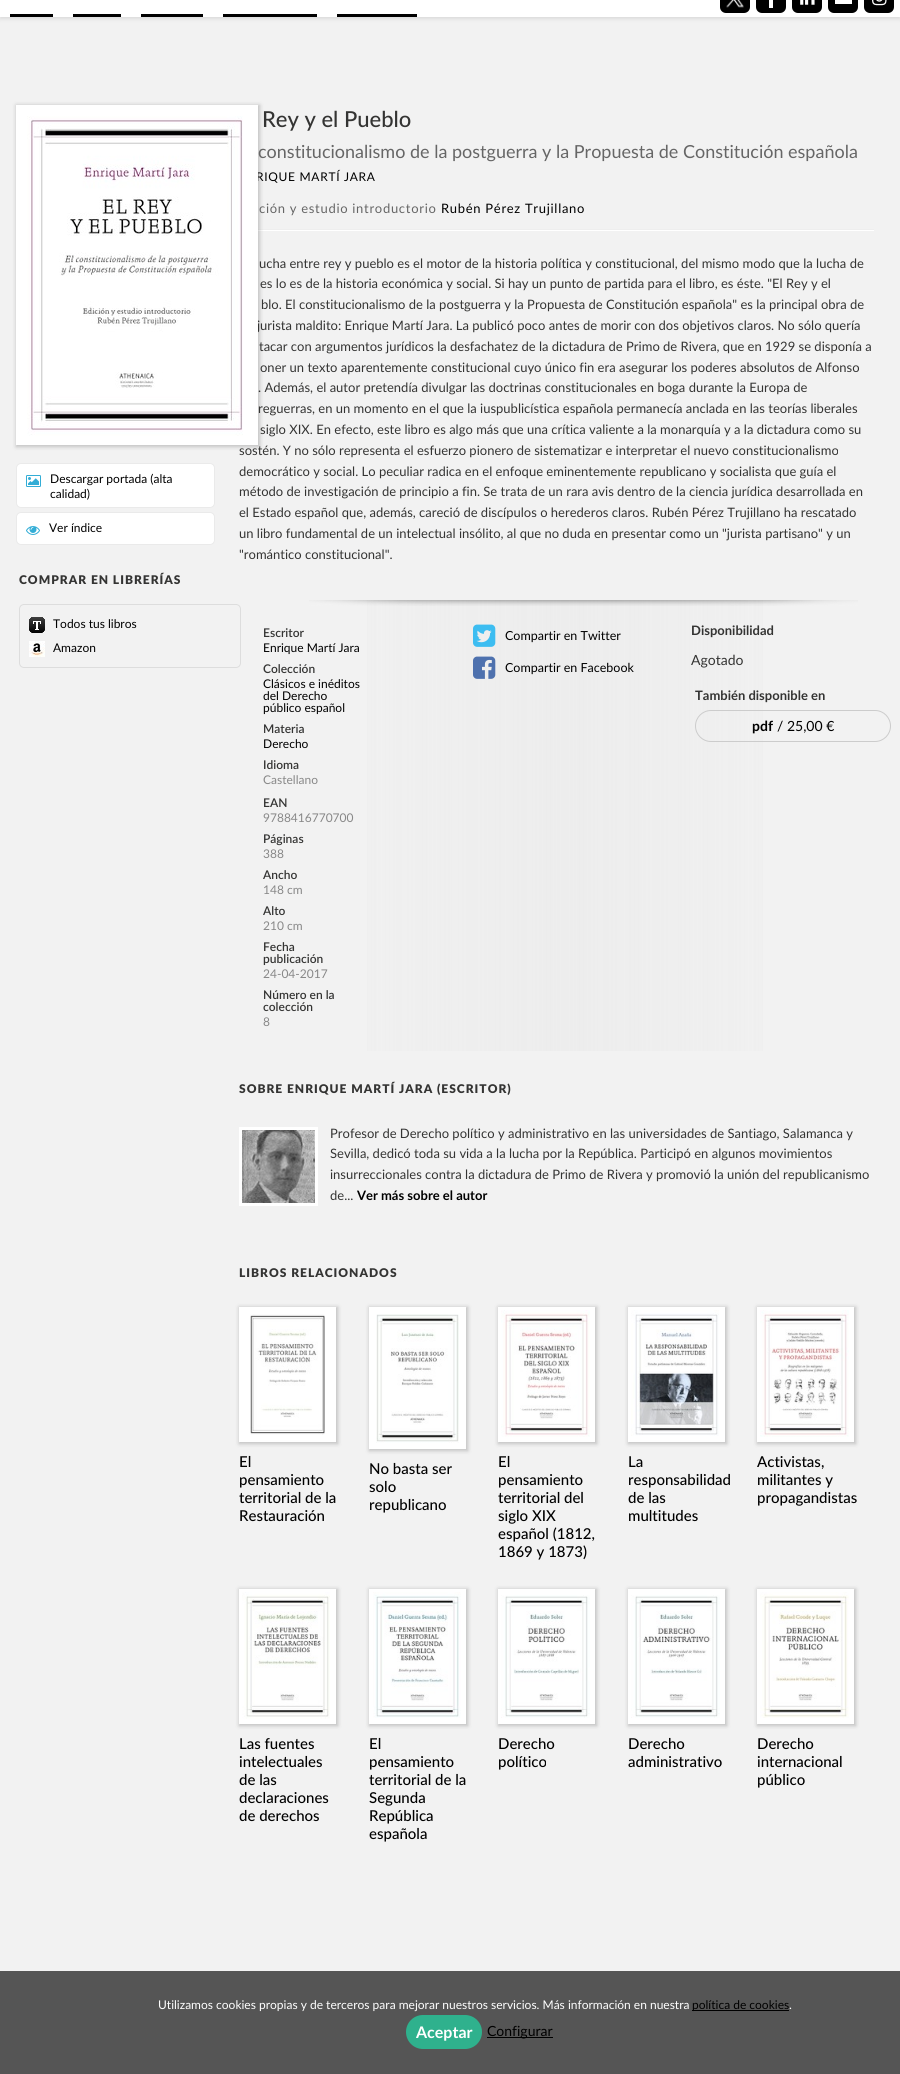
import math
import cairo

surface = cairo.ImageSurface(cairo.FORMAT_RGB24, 900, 2074)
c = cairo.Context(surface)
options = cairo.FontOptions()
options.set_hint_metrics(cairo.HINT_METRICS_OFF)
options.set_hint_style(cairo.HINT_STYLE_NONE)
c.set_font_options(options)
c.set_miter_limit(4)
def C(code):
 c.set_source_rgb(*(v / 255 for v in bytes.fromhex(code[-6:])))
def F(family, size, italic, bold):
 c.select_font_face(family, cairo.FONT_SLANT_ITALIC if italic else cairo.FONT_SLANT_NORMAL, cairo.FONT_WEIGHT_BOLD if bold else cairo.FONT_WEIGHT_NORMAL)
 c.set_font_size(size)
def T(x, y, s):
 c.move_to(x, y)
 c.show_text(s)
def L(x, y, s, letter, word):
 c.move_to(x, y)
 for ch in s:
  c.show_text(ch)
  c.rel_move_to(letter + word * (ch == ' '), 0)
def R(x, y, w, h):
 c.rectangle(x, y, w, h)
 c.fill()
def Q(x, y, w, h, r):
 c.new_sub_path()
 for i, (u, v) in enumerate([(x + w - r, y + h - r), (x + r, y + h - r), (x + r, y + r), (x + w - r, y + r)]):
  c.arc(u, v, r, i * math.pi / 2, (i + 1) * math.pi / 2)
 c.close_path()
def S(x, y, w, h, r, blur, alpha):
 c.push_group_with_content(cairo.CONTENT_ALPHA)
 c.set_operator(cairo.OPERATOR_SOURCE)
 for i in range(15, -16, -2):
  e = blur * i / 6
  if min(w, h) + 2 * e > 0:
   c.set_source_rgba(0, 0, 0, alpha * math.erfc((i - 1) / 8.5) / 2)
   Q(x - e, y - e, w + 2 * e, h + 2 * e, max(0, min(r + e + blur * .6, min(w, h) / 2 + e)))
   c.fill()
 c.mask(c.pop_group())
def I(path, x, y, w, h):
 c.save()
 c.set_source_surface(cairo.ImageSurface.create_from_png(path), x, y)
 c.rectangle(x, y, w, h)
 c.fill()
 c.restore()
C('f2f2f2')
c.paint()
C('000000')
S(0,-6,900,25,0,2,.1)
C('ffffff')
R(0,0,900,17)
C('000000')
Q(720,-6,30,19,6)
c.fill()
I('1.png',726,0,18,8)
Q(756,-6,30,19,6)
c.fill()
C('ffffff')
R(769,0,4,8)
C('000000')
Q(792,-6,30,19,6)
c.fill()
I('2.png',800,0,15,5)
Q(828,-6,30,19,6)
c.fill()
C('ffffff')
R(835,0,17,4)
C('000000')
Q(864,-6,30,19,6)
c.fill()
I('3.png',872,0,15,6)
R(10,14,43,3)
R(73,14,48,3)
R(141,14,62,3)
R(223,14,94,3)
R(337,14,80,3)
C('eeeeee')
R(258,229,616,1)
C('ffffff')
R(258,230,616,1)
C('000000')
S(16,105,244,342,0,2,.2)
F('Lato',12,0,0)
C('000000')
L(256,181,'RIQUE MARTÍ JARA',.7,0)
F('Lato',13,0,0)
C('343433')
T(257,330,'jurista maldito: Enrique Martí Jara. La publicó poco antes de morir con dos objetivos claros. No sólo quería')
C('ffffff')
R(16,105,242,340)
I('4.png',27,116,216,320)
Q(16.5,463.5,198,44,4.5)
c.fill_preserve()
C('eaeaea')
c.set_line_width(1)
c.stroke()
I('5.png',26,475,15,12)
F('Lato',12,0,0)
C('000000')
T(50,483,'Descargar portada (alta')
T(50,498,'calidad)')
C('ffffff')
Q(16.5,512.5,198,32,4.5)
c.fill_preserve()
C('eaeaea')
c.stroke()
I('6.png',26,526,14,9)
C('000000')
T(49,532,'Ver índice')
F('Lato ExtraBold',12,0,0)
C('343433')
L(19,584,'COMPRAR EN LIBRERÍAS',1,0)
Q(19.5,604.5,221,63,4.5)
C('dddddd')
c.stroke()
I('7.png',29,617,16,16)
F('Lato',12,0,0)
C('000000')
T(53,628,'Todos tus libros')
I('8.png',29,641,16,16)
T(53,652,'Amazon')
F('Lato Medium',22,0,0)
C('343433')
T(262,127,'Rey y el Pueblo')
F('Lato',18,0,0)
C('666666')
T(258,158,'constitucionalismo de la postguerra y la Propuesta de Constitución española')
F('Lato',13,0,0)
L(259,213,'ción y estudio introductorio',.7,0)
C('000000')
L(441,213,'Rubén Pérez Trujillano',.7,0)
C('343433')
T(259,268,'ucha entre rey y pueblo es el motor de la historia política y constitucional, del mismo modo que la lucha de')
T(260,288,'es lo es de la historia económica y social. Si hay un punto de partida para el libro, es éste. "El Rey y el')
T(261,309,'blo. El constitucionalismo de la postguerra y la Propuesta de Constitución española" es la principal obra de')
T(259,351,'tacar con argumentos jurídicos la desfachatez de la dictadura de Primo de Rivera, que en 1929 se disponía a')
T(260,372,'oner un texto aparentemente constitucional cuyo único fin era asegurar los poderes absolutos de Alfonso')
T(258,392,'. Además, el autor pretendía divulgar las doctrinas constitucionales en boga durante la Europa de')
T(258,413,'reguerras, en un momento en el que la iuspublicística española permanecía anclada en las teorías liberales')
T(260,434,'siglo XIX. En efecto, este libro es algo más que una crítica valiente a la monarquía y a la dictadura como su')
T(239,455,'sostén. Y no sólo representa el esfuerzo pionero de sistematizar e interpretar el nuevo constitucionalismo')
T(239,476,'democrático y social. Lo peculiar radica en el enfoque eminentemente republicano y socialista que guía el')
T(239,496,'método de investigación de principio a fin. Se trata de un rara avis dentro de la ciencia jurídica desarrollada en')
T(239,517,'el Estado español que, además, careció de discípulos o herederos claros. Rubén Pérez Trujillano ha rescatado')
T(239,538,'un libro fundamental de un intelectual insólito, al que no duda en presentar como un "jurista partisano" y un')
T(239,559,'"romántico constitucional".')
gradient = cairo.LinearGradient(239,826,891,826)
gradient.add_color_stop_rgba(0,0.929,0.929,0.929,0)
gradient.add_color_stop_rgba(.5,0.929,0.929,0.929,1)
gradient.add_color_stop_rgba(1,0.929,0.929,0.929,0)
c.set_source(gradient)
R(367,600,396,451)
I('9.png',309,600,549,6)
F('Lato SemiBold',12,0,0)
C('343433')
T(263,637,'Escritor')
F('Lato',12,0,0)
C('000000')
T(263,652,'Enrique Martí Jara')
F('Lato SemiBold',12,0,0)
C('343433')
T(263,673,'Colección')
F('Lato',12,0,0)
C('000000')
T(263,688,'Clásicos e inéditos')
T(263,700,'del Derecho')
T(263,712,'público español')
F('Lato SemiBold',12,0,0)
C('343433')
T(263,733,'Materia')
F('Lato',12,0,0)
C('000000')
T(263,748,'Derecho')
F('Lato SemiBold',12,0,0)
C('343433')
T(263,769,'Idioma')
F('Lato',12,0,0)
C('888888')
T(263,784,'Castellano')
F('Lato SemiBold',12,0,0)
C('343433')
T(263,807,'EAN')
F('Lato',12,0,0)
C('888888')
T(263,822,'9788416770700')
F('Lato SemiBold',12,0,0)
C('343433')
T(263,843,'Páginas')
F('Lato',12,0,0)
C('888888')
T(263,858,'388')
F('Lato SemiBold',12,0,0)
C('343433')
T(263,879,'Ancho')
F('Lato',12,0,0)
C('888888')
T(263,894,'148 cm')
F('Lato SemiBold',12,0,0)
C('343433')
T(263,915,'Alto')
F('Lato',12,0,0)
C('888888')
T(263,930,'210 cm')
F('Lato SemiBold',12,0,0)
C('343433')
T(263,951,'Fecha')
T(263,963,'publicación')
F('Lato',12,0,0)
C('888888')
T(263,978,'24-04-2017')
F('Lato SemiBold',12,0,0)
C('343433')
T(263,999,'Número en la')
T(263,1011,'colección')
F('Lato',12,0,0)
C('888888')
T(263,1026,'8')
I('10.png',473,624,23,23)
F('Lato',12.5,0,0)
C('000000')
T(505,640,'Compartir en Twitter')
I('11.png',473,656,23,23)
T(505,672,'Compartir en Facebook')
F('Lato',13,0,1)
C('343433')
T(691,635,'Disponibilidad')
F('Lato',14,0,0)
T(691,665,'Agotado')
F('Lato',13,0,1)
T(695,700,'También disponible en')
Q(695.5,710.5,195,31,15.5)
C('cccccc')
c.stroke()
F('Lato',14,0,1)
C('000000')
T(752,731,'pdf')
F('Lato',14,0,0)
T(777,731,'/ 25,00 €')
F('Lato ExtraBold',12,0,0)
C('343433')
L(239,1093,'SOBRE ENRIQUE MARTÍ JARA (ESCRITOR)',1,0)
C('ffffff')
R(239,1127,79,79)
I('12.png',242,1130,73,73)
F('Lato',13,0,0)
C('343433')
T(330,1138,'Profesor de Derecho político y administrativo en las universidades de Santiago, Salamanca y')
T(330,1158,'Sevilla, dedicó toda su vida a la lucha por la República. Participó en algunos movimientos')
T(330,1179,'insurreccionales contra la dictadura de Primo de Rivera y promovió la unión del republicanismo')
T(330,1200,'de...')
F('Lato',13,0,1)
C('000000')
T(357,1200,'Ver más sobre el autor')
F('Lato ExtraBold',12,0,0)
C('343433')
L(239,1277,'LIBROS RELACIONADOS',1,0)
C('000000')
S(239,1307,99,137,0,2,.2)
C('ffffff')
R(239,1307,97,135)
I('13.png',250,1314,75,121)
F('Lato Medium',15,0,0)
C('000000')
T(239,1467,'El')
T(239,1485,'pensamiento')
T(239,1503,'territorial de la')
T(239,1521,'Restauración')
C('000000')
S(369,1307,99,144,0,2,.2)
C('ffffff')
R(369,1307,97,142)
I('14.png',376,1314,83,129)
C('000000')
T(369,1474,'No basta ser')
T(369,1492,'solo')
T(369,1510,'republicano')
C('000000')
S(498,1307,99,137,0,2,.2)
C('ffffff')
R(498,1307,97,135)
I('15.png',501,1310,89,127)
C('000000')
T(498,1467,'El')
T(498,1485,'pensamiento')
T(498,1503,'territorial del')
T(498,1521,'siglo XIX')
T(498,1539,'español (1812,')
T(498,1557,'1869 y 1873)')
C('000000')
S(628,1307,99,137,0,2,.2)
C('ffffff')
R(628,1307,97,135)
I('16.png',631,1310,88,126)
C('000000')
T(628,1467,'La')
T(628,1485,'responsabilidad')
T(628,1503,'de las')
T(628,1521,'multitudes')
C('000000')
S(757,1307,99,137,0,2,.2)
C('ffffff')
R(757,1307,97,135)
I('17.png',760,1310,89,127)
C('000000')
T(757,1467,'Activistas,')
T(757,1485,'militantes y')
T(757,1503,'propagandistas')
C('000000')
S(239,1589,99,137,0,2,.2)
C('ffffff')
R(239,1589,97,135)
I('18.png',242,1592,88,127)
C('000000')
T(239,1749,'Las fuentes')
T(239,1767,'intelectuales')
T(239,1785,'de las')
T(239,1803,'declaraciones')
T(239,1821,'de derechos')
C('000000')
S(369,1589,99,137,0,2,.2)
C('ffffff')
R(369,1589,97,135)
I('19.png',373,1592,88,126)
C('000000')
T(369,1749,'El')
T(369,1767,'pensamiento')
T(369,1785,'territorial de la')
T(369,1803,'Segunda')
T(369,1821,'República')
T(369,1839,'española')
C('000000')
S(498,1589,99,137,0,2,.2)
C('ffffff')
R(498,1589,97,135)
I('20.png',501,1595,89,123)
C('000000')
T(498,1749,'Derecho')
T(498,1767,'político')
C('000000')
S(628,1589,99,137,0,2,.2)
C('ffffff')
R(628,1589,97,135)
I('21.png',631,1595,89,123)
C('000000')
T(628,1749,'Derecho')
T(628,1767,'administrativo')
C('000000')
S(757,1589,99,137,0,2,.2)
C('ffffff')
R(757,1589,97,135)
I('22.png',760,1592,89,126)
C('000000')
T(757,1749,'Derecho')
T(757,1767,'internacional')
T(757,1785,'público')
C('555555')
R(0,1971,900,103)
F('Lato',12,0,0)
C('ffffff')
T(158,2009,'Utilizamos cookies propias y de terceros para mejorar nuestros servicios. Más información en nuestra')
C('000000')
R(692,2010,97,1)
T(692,2009,'política de cookies')
C('ffffff')
T(789,2009,'.')
C('2fb18d')
Q(406,2015,76,34,17)
c.fill()
F('Lato',16,0,1)
C('ffffff')
T(416,2038,'Aceptar')
C('000000')
R(487,2037,66,1)
F('Lato',14,0,0)
T(487,2036,'Configurar')
surface.write_to_png('o.png')
